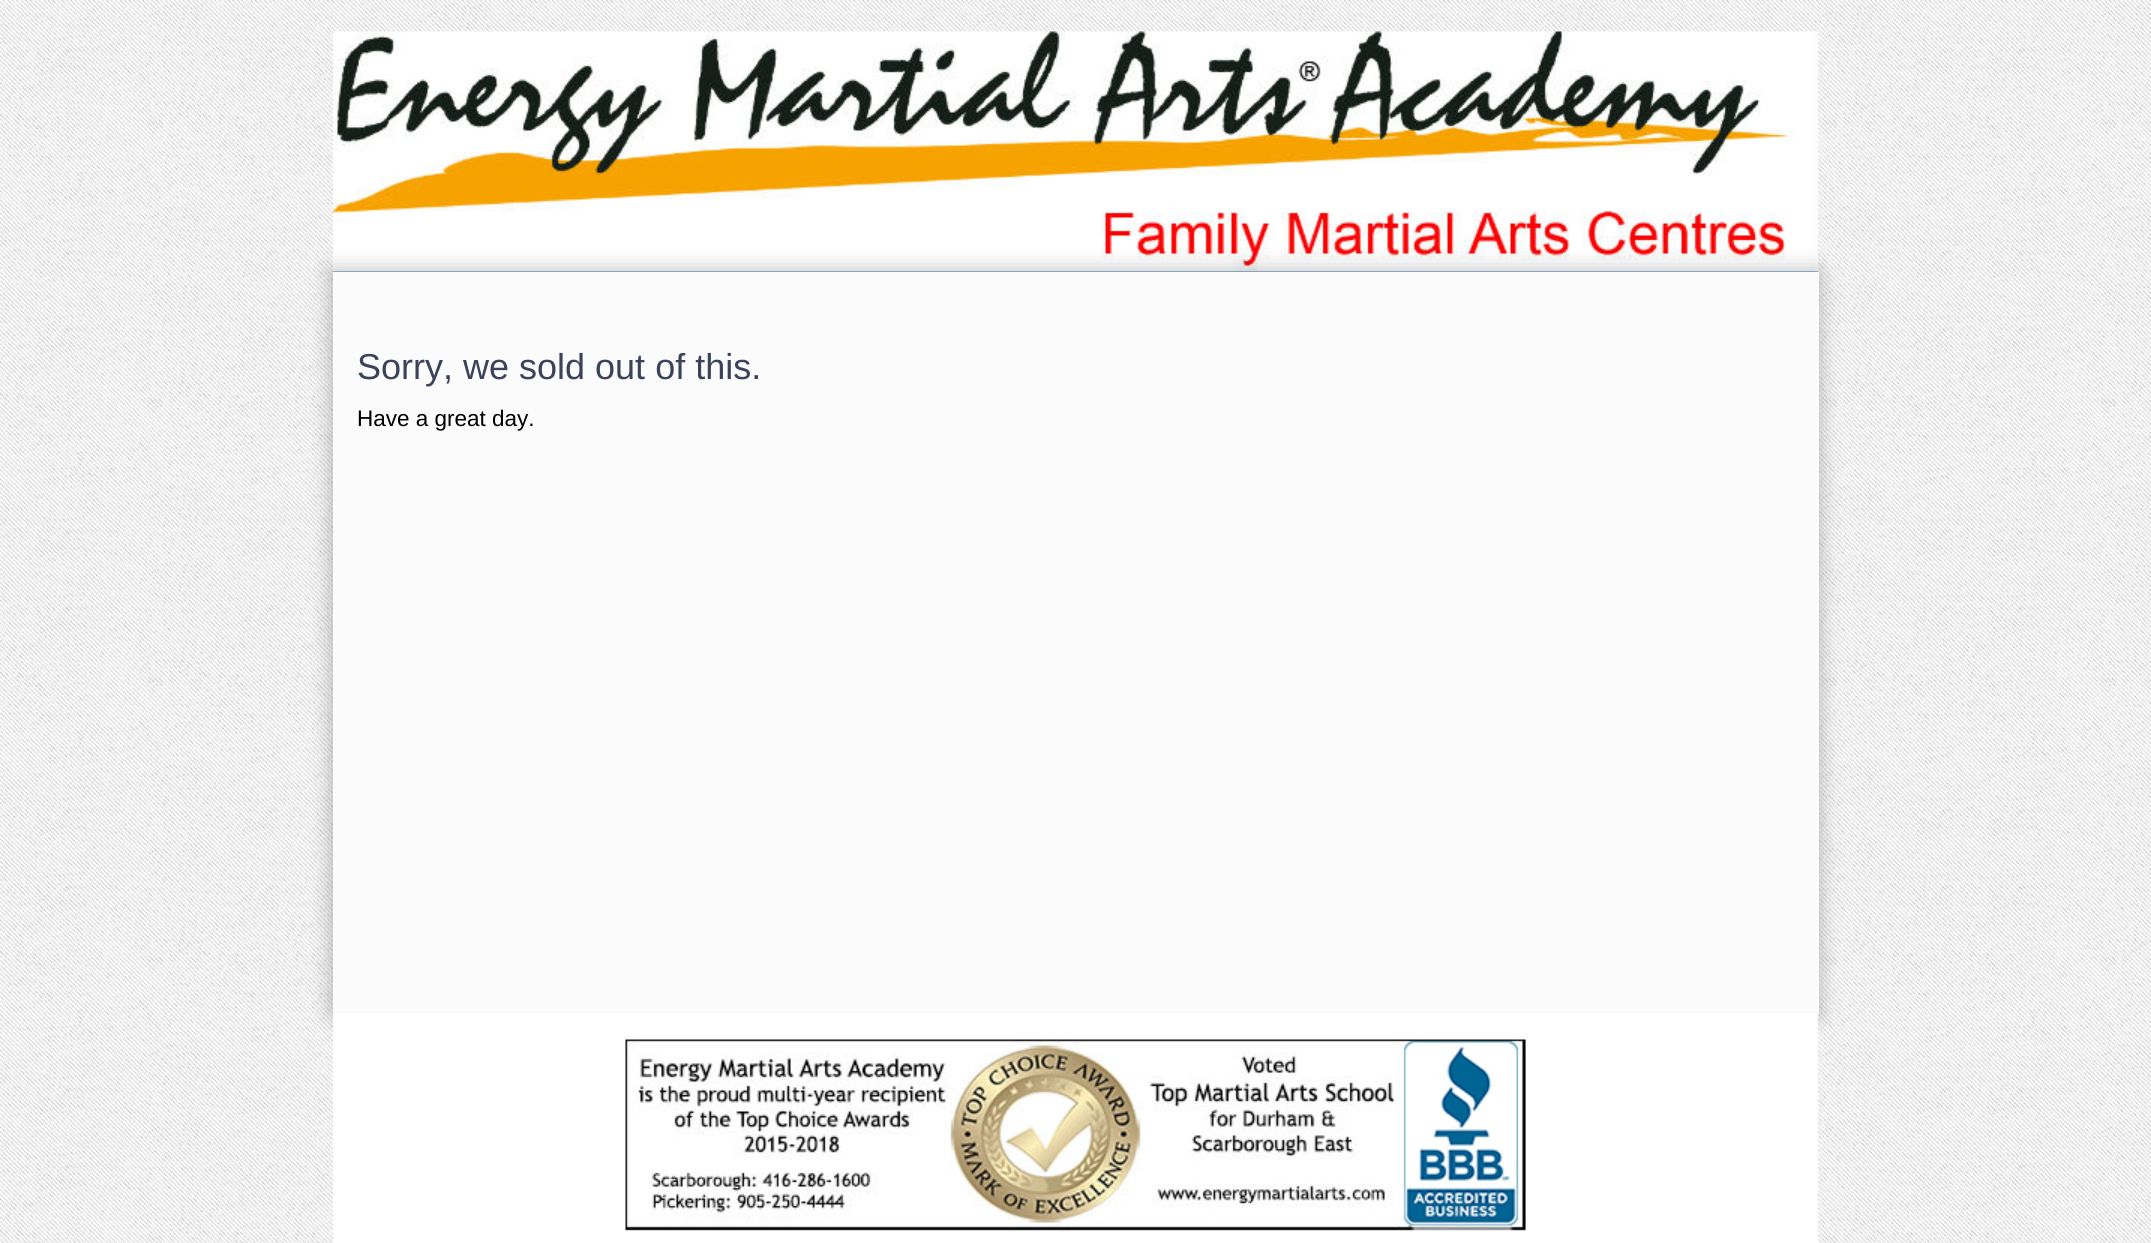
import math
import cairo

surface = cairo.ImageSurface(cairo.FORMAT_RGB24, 2151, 1243)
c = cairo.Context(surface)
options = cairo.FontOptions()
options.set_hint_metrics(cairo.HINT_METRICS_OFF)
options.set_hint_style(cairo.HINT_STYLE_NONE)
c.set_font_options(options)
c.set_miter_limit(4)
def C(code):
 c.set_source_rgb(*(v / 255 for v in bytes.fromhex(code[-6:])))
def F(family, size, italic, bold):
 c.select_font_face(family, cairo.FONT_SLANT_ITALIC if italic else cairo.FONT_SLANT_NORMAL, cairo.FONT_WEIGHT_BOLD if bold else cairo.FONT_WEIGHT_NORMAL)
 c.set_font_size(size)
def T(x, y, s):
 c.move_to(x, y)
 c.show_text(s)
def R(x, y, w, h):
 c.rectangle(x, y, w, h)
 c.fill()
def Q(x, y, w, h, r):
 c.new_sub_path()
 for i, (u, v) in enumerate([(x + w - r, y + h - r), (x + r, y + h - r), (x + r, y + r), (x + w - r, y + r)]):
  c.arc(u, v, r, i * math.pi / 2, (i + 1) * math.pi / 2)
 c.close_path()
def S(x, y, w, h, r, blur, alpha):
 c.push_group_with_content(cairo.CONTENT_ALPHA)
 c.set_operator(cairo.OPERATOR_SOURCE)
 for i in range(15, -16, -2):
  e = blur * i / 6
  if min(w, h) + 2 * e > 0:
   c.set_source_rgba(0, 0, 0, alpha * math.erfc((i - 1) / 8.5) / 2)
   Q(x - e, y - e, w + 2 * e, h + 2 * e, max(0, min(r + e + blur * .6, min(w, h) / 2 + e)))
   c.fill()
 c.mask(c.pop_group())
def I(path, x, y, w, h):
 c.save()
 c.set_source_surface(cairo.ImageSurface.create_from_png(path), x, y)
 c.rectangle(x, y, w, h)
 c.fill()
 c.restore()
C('ffffff')
c.paint()
I('1.png',0,0,2151,1243)
C('428bca')
R(333,271,1485,1)
I('2.png',333,31,1485,241)
C('000000')
S(333,272,1485,742,0,11,.3)
C('fbfbfb')
R(335,272,1482,741)
C('ffffff')
R(1817,272,2,742)
R(333,1013,1485,2)
R(333,272,2,742)
F('Liberation Sans',36,0,0)
C('3a435a')
T(357,379,'Sorry, we sold out of this.')
F('Liberation Sans',22.5,0,0)
C('000000')
T(357,426,'Have a great day.')
I('3.png',333,1015,1485,228)
surface.write_to_png('o.png')
